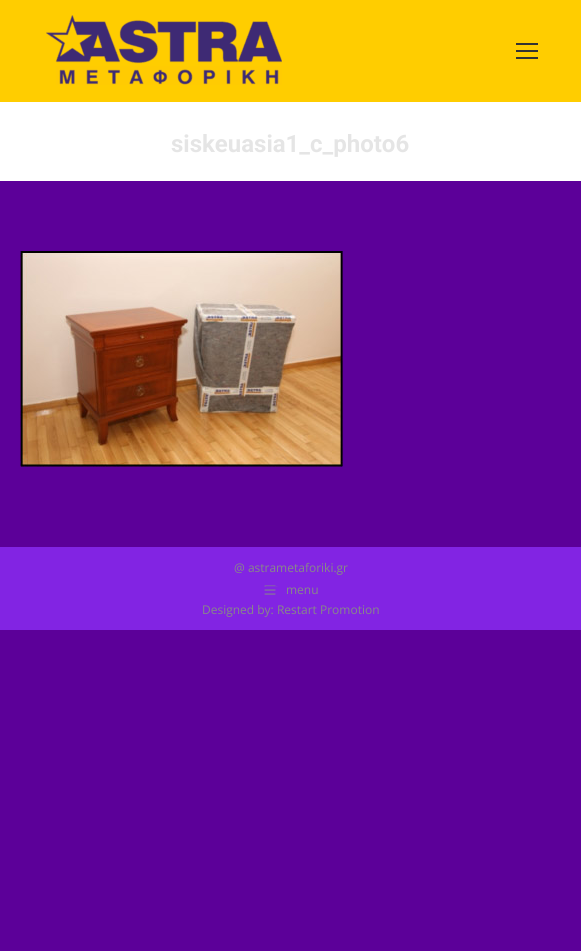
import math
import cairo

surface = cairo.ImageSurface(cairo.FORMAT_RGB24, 581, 951)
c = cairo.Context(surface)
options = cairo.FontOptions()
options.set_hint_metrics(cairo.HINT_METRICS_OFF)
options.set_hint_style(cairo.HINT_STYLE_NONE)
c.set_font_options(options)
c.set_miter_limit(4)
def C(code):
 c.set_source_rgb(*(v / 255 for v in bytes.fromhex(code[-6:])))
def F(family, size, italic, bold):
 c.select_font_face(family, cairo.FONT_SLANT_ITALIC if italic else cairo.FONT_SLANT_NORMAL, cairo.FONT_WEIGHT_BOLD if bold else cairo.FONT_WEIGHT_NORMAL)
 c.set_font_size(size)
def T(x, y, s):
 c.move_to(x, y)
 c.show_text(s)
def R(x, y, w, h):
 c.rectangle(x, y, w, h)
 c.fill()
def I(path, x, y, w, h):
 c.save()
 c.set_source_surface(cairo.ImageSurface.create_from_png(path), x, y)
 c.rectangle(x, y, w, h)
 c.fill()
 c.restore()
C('5c0099')
c.paint()
C('ffcd00')
R(0,0,581,102)
I('1.png',46,15,236,70)
C('333333')
R(516,43,22,2)
R(516,50,22,2)
R(516,57,22,2)
C('ffffff')
R(0,102,581,79)
F('Roboto',24,0,1)
C('e5e5e5')
T(171,152,'siskeuasia1_c_photo6')
I('2.png',20,251,323,216)
C('8224e3')
R(0,547,581,83)
F('Open Sans',12,0,0)
C('888888')
T(234,572,'@ astrametaforiki.gr')
I('3.png',264,585,12,10)
F('Open Sans',13,0,0)
C('8332d6')
T(265,590,'—')
F('Open Sans',12,0,0)
C('888888')
T(286,594,'menu')
T(202,614,'Designed by: Restart Promotion')
surface.write_to_png('o.png')
